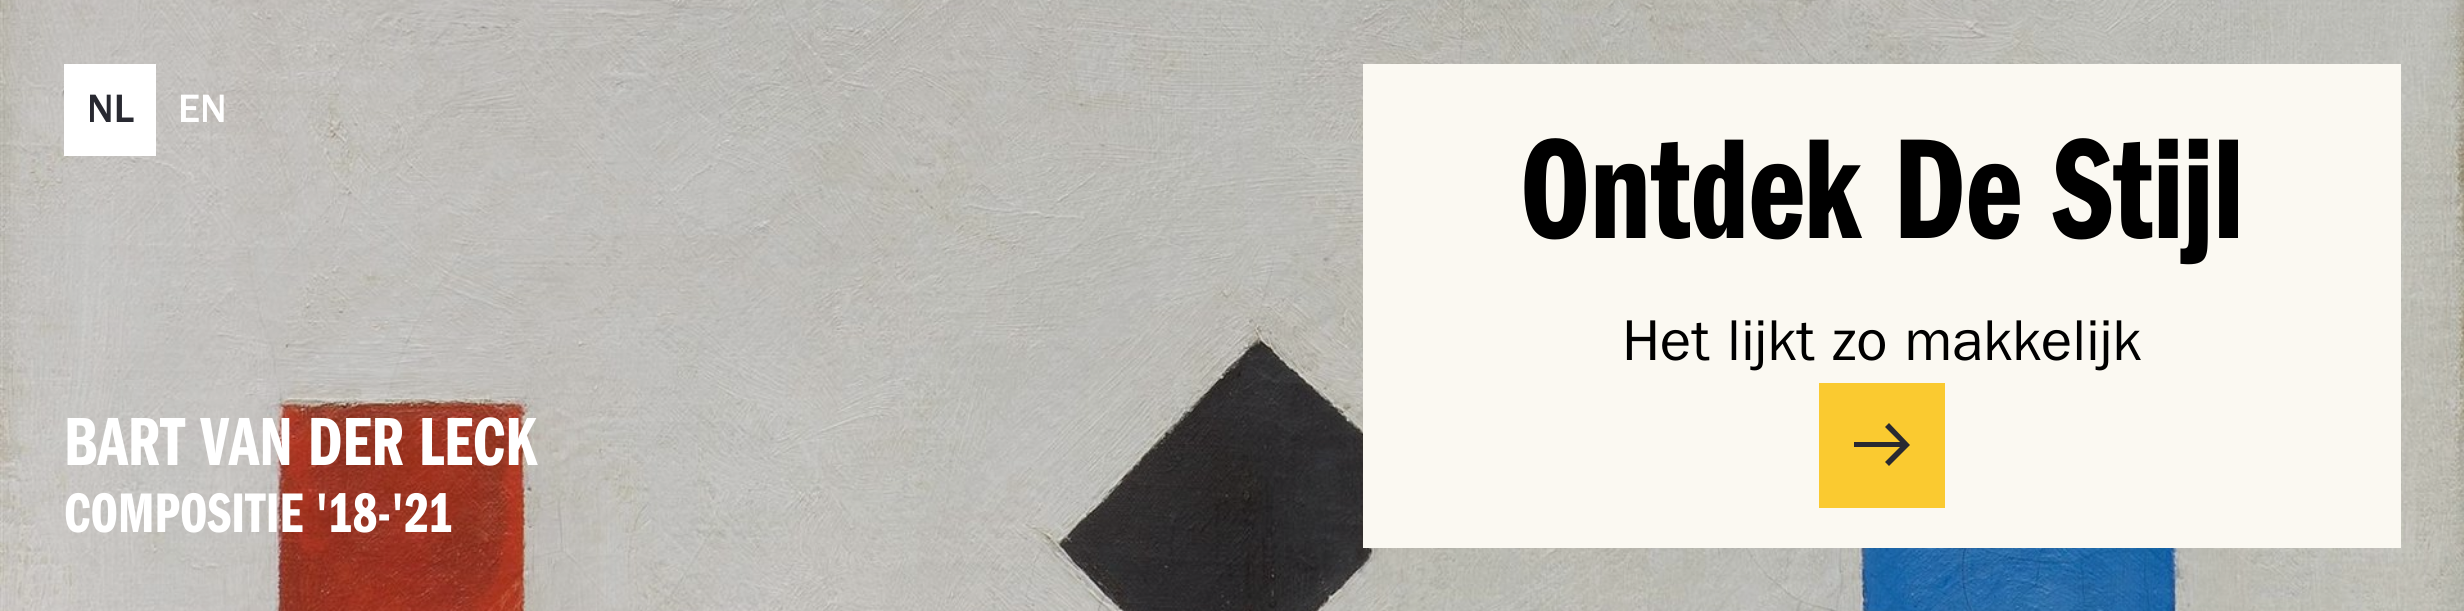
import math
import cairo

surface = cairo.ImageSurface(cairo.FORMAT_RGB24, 2464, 611)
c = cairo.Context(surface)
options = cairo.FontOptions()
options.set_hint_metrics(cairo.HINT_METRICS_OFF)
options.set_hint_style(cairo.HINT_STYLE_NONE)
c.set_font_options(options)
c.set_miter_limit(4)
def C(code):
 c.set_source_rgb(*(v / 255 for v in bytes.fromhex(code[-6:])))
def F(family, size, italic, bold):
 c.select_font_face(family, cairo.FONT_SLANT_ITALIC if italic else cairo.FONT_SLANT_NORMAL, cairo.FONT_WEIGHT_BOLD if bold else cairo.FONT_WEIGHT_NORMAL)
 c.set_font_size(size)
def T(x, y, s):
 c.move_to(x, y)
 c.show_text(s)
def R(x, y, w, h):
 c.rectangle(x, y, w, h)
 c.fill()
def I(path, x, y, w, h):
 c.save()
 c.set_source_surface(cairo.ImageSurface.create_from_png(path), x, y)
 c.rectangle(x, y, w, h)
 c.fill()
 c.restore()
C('ffffff')
c.paint()
I('1.png',0,0,2464,611)
C('ffffff')
R(64,64,92,92)
F('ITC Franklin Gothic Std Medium',41,0,0)
C('282931')
T(87,122,'NL')
C('ffffff')
T(178,122,'EN')
C('fbf9f2')
R(1363,64,1038,484)
F('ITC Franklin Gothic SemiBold',147.5,0,0)
C('000000')
T(1520,238,'Ontdek De Stijl')
F('ITC Franklin Gothic Std',57.75,0,0)
T(1622,360,'Het lijkt zo makkelijk')
C('faca30')
R(1819,383,126,125)
C('282931')
c.new_path()
c.move_to(1889,466)
c.line_to(1885,462)
c.line_to(1900,447)
c.line_to(1854,447)
c.line_to(1854,442)
c.line_to(1900,442)
c.line_to(1885,427)
c.line_to(1889,423)
c.line_to(1910,445)
c.close_path()
c.fill()
F('ITC Franklin Gothic SemiBold',70.5,0,0)
C('ffffff')
T(64,465,'BART VAN DER LECK')
F('ITC Franklin Gothic SemiBold',57.75,0,0)
T(64,532,'COMPOSITIE \'18-\'21')
surface.write_to_png('o.png')
